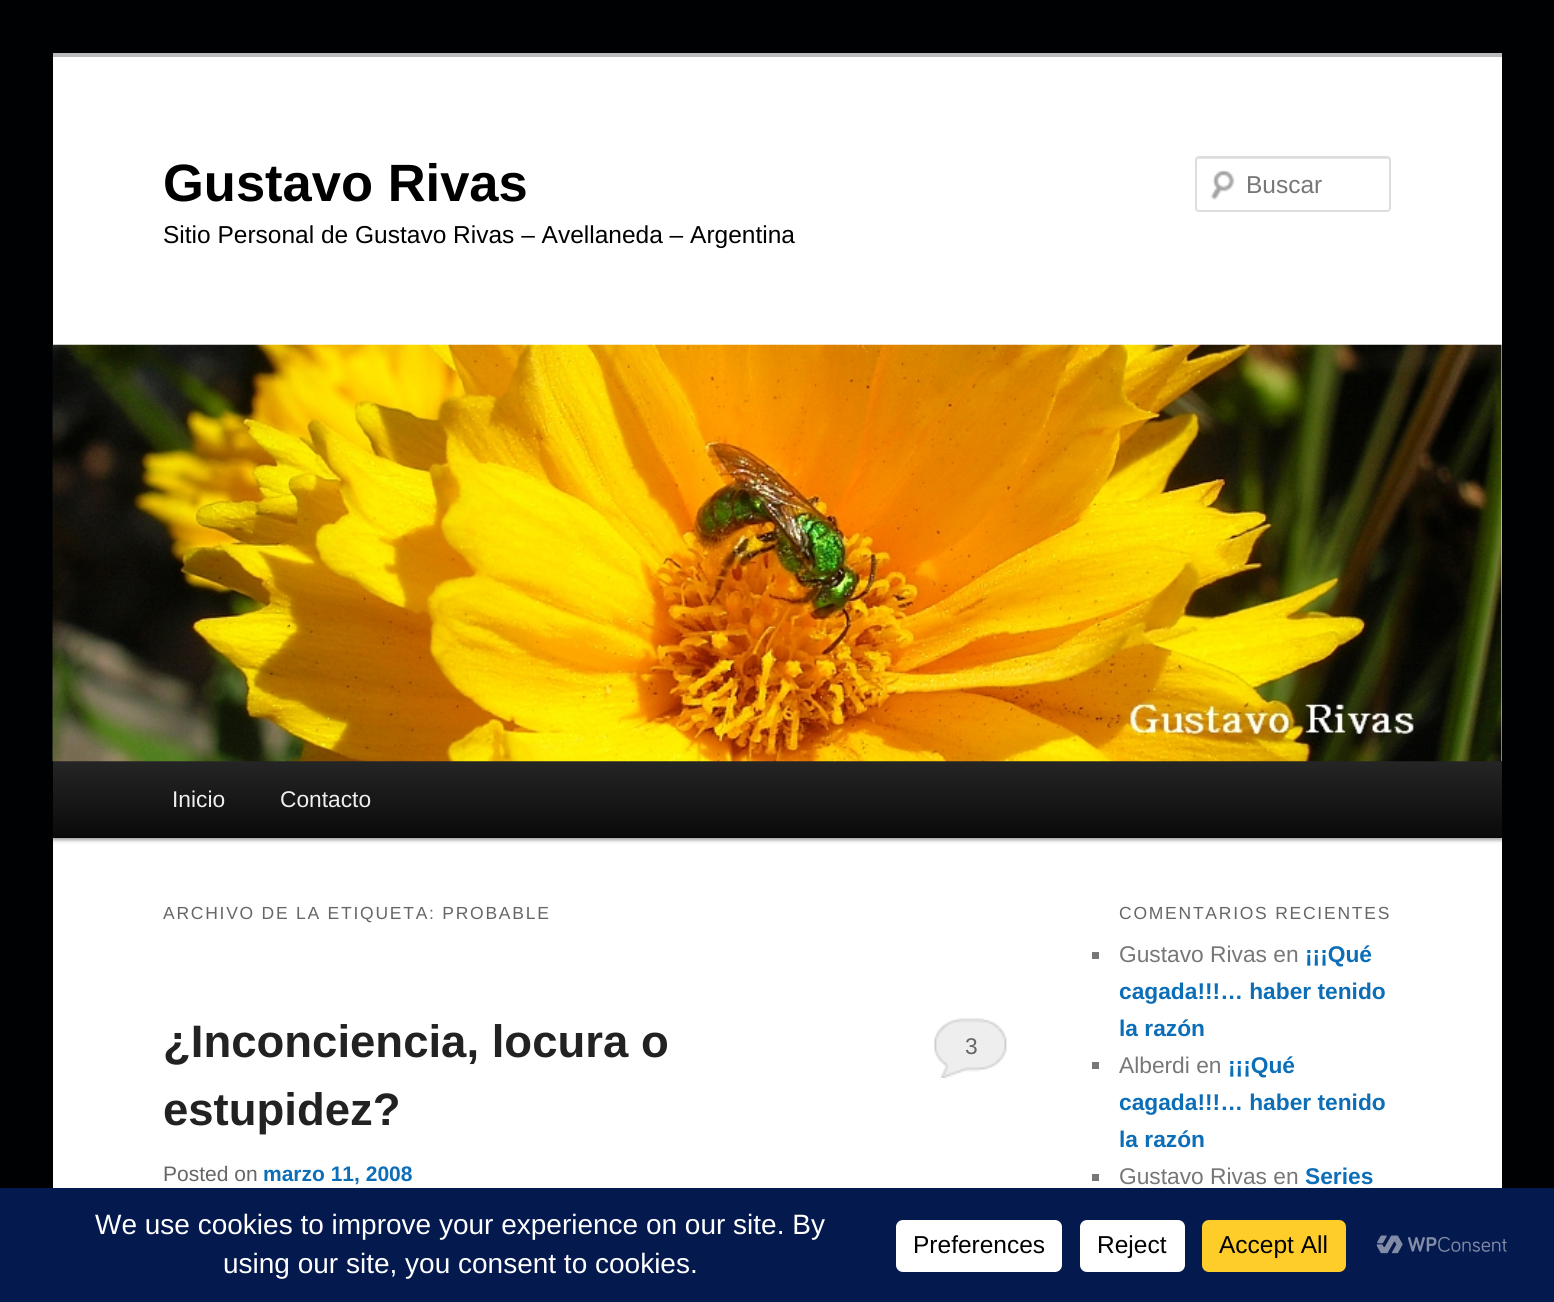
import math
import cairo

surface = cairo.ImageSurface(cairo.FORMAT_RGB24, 1554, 1302)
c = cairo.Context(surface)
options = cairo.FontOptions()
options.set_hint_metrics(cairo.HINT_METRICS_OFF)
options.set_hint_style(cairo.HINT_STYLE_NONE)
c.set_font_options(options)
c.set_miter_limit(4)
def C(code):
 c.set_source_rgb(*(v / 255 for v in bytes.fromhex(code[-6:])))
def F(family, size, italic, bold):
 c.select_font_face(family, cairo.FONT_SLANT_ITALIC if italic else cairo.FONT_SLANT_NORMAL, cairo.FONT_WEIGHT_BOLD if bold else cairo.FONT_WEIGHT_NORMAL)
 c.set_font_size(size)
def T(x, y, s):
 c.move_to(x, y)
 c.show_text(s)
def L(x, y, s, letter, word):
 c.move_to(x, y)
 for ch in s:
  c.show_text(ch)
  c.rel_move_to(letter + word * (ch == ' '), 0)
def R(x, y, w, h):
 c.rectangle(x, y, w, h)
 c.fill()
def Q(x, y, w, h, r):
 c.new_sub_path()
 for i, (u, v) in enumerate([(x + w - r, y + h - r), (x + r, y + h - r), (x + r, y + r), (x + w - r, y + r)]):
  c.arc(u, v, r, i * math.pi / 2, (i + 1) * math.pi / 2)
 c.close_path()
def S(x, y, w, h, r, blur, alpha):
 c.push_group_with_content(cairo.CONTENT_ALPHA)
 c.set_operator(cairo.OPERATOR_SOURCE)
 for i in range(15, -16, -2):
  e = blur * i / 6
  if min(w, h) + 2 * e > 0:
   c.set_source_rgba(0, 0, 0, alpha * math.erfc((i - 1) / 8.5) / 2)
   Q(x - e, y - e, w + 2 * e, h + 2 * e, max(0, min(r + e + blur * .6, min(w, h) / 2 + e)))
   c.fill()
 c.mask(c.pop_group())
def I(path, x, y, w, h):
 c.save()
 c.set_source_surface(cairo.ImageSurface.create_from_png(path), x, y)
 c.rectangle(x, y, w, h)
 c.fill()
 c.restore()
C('000103')
c.paint()
C('ffffff')
R(53,57,1449,1131)
C('bbbbbb')
R(53,53,1449,4)
F('Liberation Sans',52.5,0,1)
C('000000')
T(163,201,'Gustavo Rivas')
F('Liberation Sans',24.5,0,0)
T(163,243,'Sitio Personal de Gustavo Rivas – Avellaneda – Argentina')
I('1.png',1210,170,25,30)
C('e6e6e6')
c.new_path()
c.move_to(1199,159)
c.line_to(1388,159)
c.line_to(1390,160)
c.line_to(1390,161)
c.line_to(1390,160)
c.curve_to(1390,159,1389,158,1388,158)
c.line_to(1199,158)
c.curve_to(1198,158,1197,159,1197,160)
c.line_to(1197,161)
c.curve_to(1197,160,1198,159,1199,159)
c.close_path()
c.fill()
Q(1196,157,194,54,3)
C('dddddd')
c.stroke()
C('777777')
T(1246,193,'Buscar')
C('000000')
S(53,763,1449,77,0,2,.4)
gradient = cairo.LinearGradient(777,761,777,838)
gradient.add_color_stop_rgba(0,0.145,0.145,0.145,1)
gradient.add_color_stop_rgba(1,0.039,0.039,0.039,1)
c.set_source(gradient)
R(53,761,1449,77)
I('2.png',52,344,1450,418)
F('Liberation Sans',22.75,0,0)
C('eeeeee')
T(172,807,'Inicio')
T(280,807,'Contacto')
F('Liberation Sans',17.5,0,0)
C('666666')
L(163,919,'ARCHIVO DE LA ETIQUETA: PROBABLE',1.75,0)
F('Liberation Sans',45.5,0,1)
C('222222')
T(163,1057,'¿Inconciencia, locura o')
T(163,1125,'estupidez?')
C('eeeeee')
R(934,1018,73,60)
I('3.png',933,1015,75,63)
F('Liberation Sans',22.75,0,0)
C('666666')
T(965,1054,'3')
F('Liberation Sans',21,0,0)
T(163,1181,'Posted on')
F('Liberation Sans',21,0,1)
C('0d6eb8')
T(263,1181,'marzo 11, 2008')
F('Liberation Sans',17.5,0,0)
C('666666')
L(1119,919,'COMENTARIOS RECIENTES',1.75,0)
C('777777')
R(1092,952,7,7)
F('Liberation Sans',22.75,0,0)
T(1119,962,'Gustavo Rivas en')
F('Liberation Sans',22.75,0,1)
C('0d6eb8')
T(1305,962,'¡¡¡Qué')
T(1119,999,'cagada!!!… haber tenido')
T(1119,1036,'la razón')
C('777777')
R(1092,1062,7,7)
F('Liberation Sans',22.75,0,0)
T(1119,1073,'Alberdi en')
F('Liberation Sans',22.75,0,1)
C('0d6eb8')
T(1228,1073,'¡¡¡Qué')
T(1119,1110,'cagada!!!… haber tenido')
T(1119,1147,'la razón')
C('777777')
R(1092,1174,7,7)
F('Liberation Sans',22.75,0,0)
T(1119,1184,'Gustavo Rivas en')
F('Liberation Sans',22.75,0,1)
C('0d6eb8')
T(1305,1184,'Series')
C('04194e')
R(0,1188,1554,114)
F('Liberation Sans',28,0,0)
C('ffffff')
T(95,1234,'We use cookies to improve your experience on our site. By')
T(223,1273,'using our site, you consent to cookies.')
Q(896,1220,166,52,7)
c.fill()
F('Liberation Sans',24.5,0,0)
C('000000')
T(913,1253,'Preferences')
C('ffffff')
Q(1080,1220,105,52,7)
c.fill()
C('000000')
T(1097,1253,'Reject')
C('ffcd2a')
Q(1202,1220,144,52,7)
c.fill()
C('000000')
T(1219,1253,'Accept All')
I('4.png',1376,1235,131,19)
surface.write_to_png('o.png')
